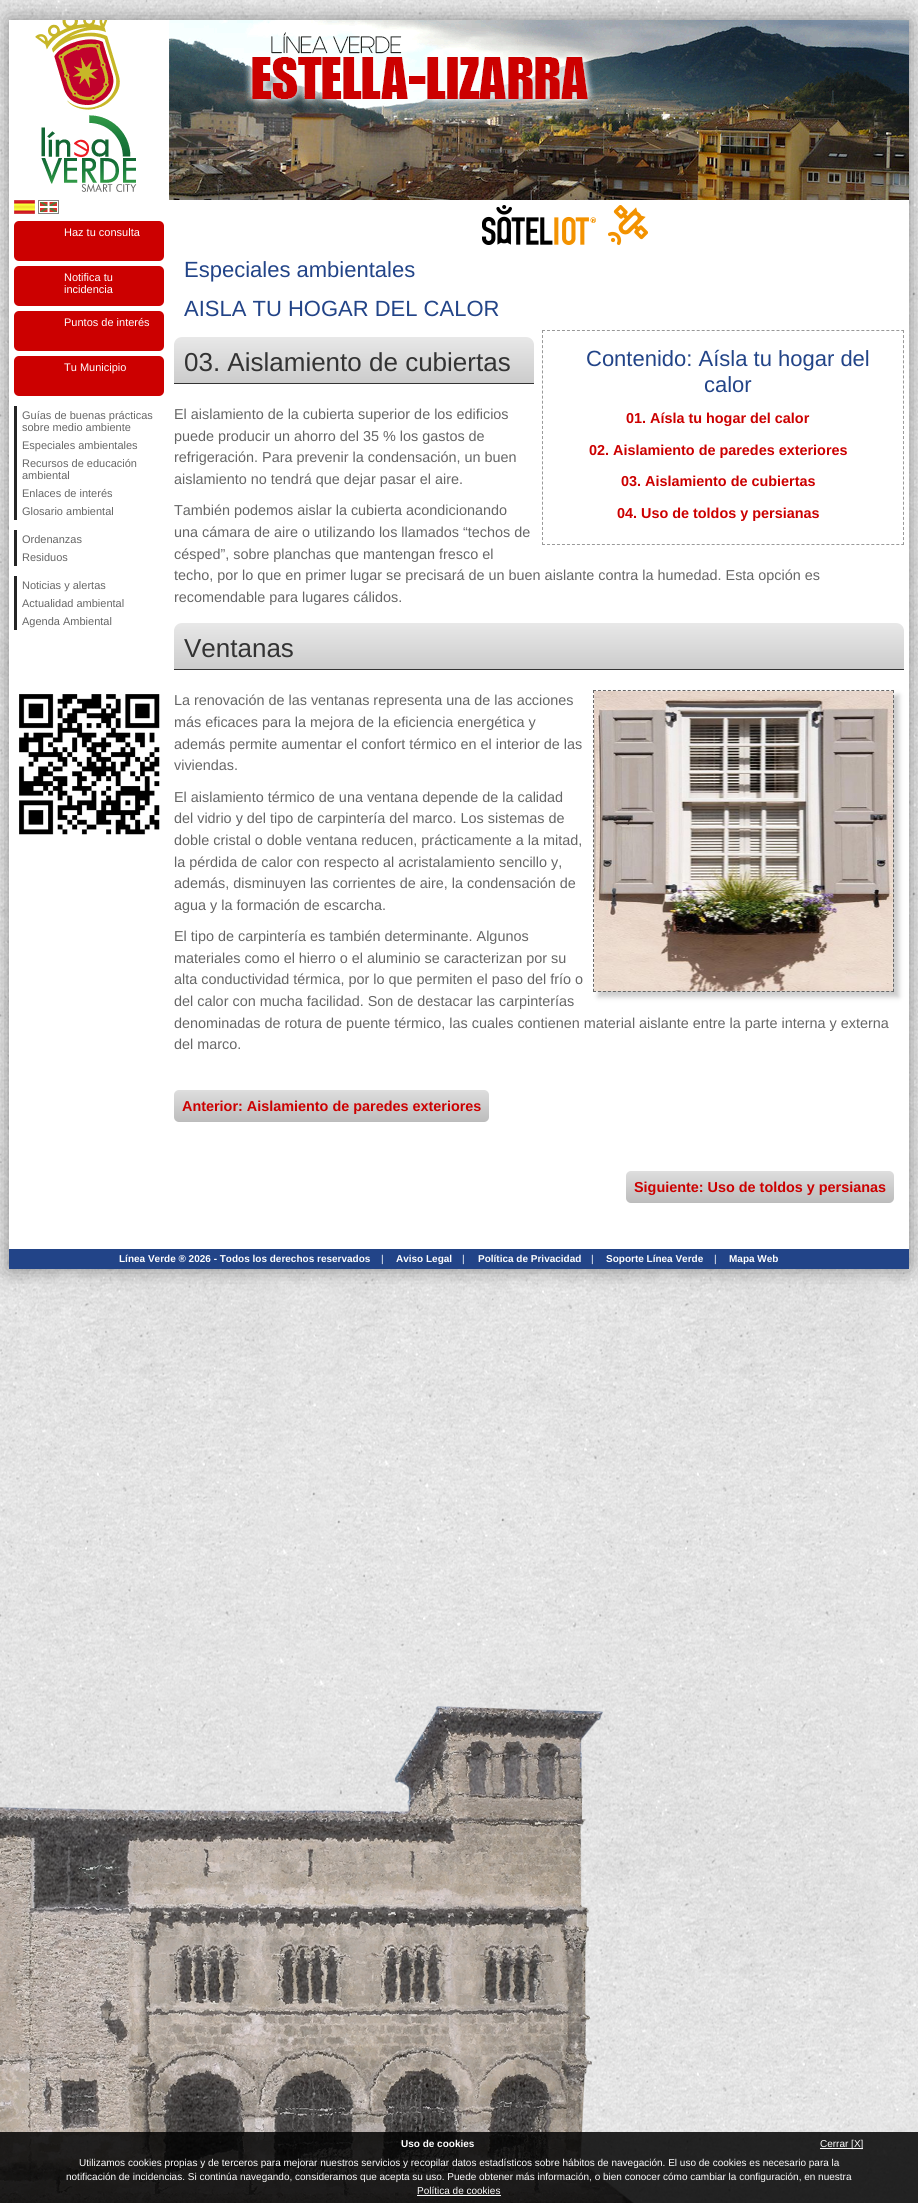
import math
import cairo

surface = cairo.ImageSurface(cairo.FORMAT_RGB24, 918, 2203)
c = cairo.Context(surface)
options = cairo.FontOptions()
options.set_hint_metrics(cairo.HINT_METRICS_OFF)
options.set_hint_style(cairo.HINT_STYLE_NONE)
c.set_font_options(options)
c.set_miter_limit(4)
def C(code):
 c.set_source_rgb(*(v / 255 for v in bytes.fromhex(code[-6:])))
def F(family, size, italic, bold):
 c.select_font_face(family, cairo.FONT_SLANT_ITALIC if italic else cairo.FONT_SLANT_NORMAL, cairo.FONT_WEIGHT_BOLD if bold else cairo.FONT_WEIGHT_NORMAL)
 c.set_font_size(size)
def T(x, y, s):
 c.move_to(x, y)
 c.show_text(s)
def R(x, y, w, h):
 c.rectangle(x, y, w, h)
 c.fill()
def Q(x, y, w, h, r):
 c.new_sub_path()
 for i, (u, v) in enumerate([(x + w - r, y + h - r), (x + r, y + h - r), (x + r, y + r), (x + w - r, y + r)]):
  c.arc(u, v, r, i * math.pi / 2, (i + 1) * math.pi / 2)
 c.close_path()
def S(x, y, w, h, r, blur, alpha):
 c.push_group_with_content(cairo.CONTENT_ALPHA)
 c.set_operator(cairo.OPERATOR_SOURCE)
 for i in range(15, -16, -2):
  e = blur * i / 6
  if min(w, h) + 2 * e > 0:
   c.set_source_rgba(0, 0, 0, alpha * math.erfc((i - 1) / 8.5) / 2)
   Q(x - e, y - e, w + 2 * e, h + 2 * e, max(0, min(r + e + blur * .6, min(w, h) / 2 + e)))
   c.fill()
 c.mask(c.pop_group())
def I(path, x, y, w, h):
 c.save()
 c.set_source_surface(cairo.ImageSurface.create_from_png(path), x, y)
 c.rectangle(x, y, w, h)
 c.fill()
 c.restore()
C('ffffff')
c.paint()
I('1.png',0,0,918,2203)
C('000000')
S(9,20,900,1249,0,10,.4)
C('ffffff')
R(9,20,900,1229)
I('2.png',35,20,874,90)
I('3.png',41,115,96,77)
I('4.png',169,110,740,90)
I('5.png',482,205,166,40)
I('6.png',14,200,21,14)
I('7.png',38,200,21,14)
C('cc0000')
Q(14,221,150,40,5)
c.fill()
F('Liberation Sans',11,0,0)
C('ffffff')
T(64,236,'Haz tu consulta')
C('cc0000')
Q(14,266,150,40,5)
c.fill()
C('ffffff')
T(64,281,'Notifica tu')
T(64,293,'incidencia')
C('cc0000')
Q(14,311,150,40,5)
c.fill()
C('ffffff')
T(64,326,'Puntos de interés')
C('cc0000')
Q(14,356,150,40,5)
c.fill()
C('ffffff')
T(64,371,'Tu Municipio')
C('242424')
R(14,406,3,114)
C('666666')
T(22,419,'Guías de buenas prácticas')
T(22,431,'sobre medio ambiente')
T(22,449,'Especiales ambientales')
T(22,467,'Recursos de educación')
T(22,479,'ambiental')
T(22,497,'Enlaces de interés')
T(22,515,'Glosario ambiental')
C('242424')
R(14,530,3,36)
C('666666')
T(22,543,'Ordenanzas')
T(22,561,'Residuos')
C('242424')
R(14,576,3,54)
C('666666')
T(22,589,'Noticias y alertas')
T(22,607,'Actualidad ambiental')
T(22,625,'Agenda Ambiental')
I('8.png',19,694,141,141)
F('Liberation Sans',22,0,0)
C('224488')
T(184,277,'Especiales ambientales')
T(184,316,'AISLA TU HOGAR DEL CALOR')
gradient = cairo.LinearGradient(354,337,354,383)
gradient.add_color_stop_rgba(0,0.91,0.91,0.91,1)
gradient.add_color_stop_rgba(1,0.8,0.8,0.8,1)
c.set_source(gradient)
c.new_path()
c.move_to(182,337)
c.line_to(526,337)
c.curve_to(530.5,337,534,340.5,534,345)
c.line_to(534,383)
c.line_to(174,383)
c.line_to(174,345)
c.curve_to(174,340.5,177.5,337,182,337)
c.close_path()
c.fill()
C('333333')
R(174,383,360,1)
F('Liberation Sans',26,0,0)
T(184,371,'03. Aislamiento de cubiertas')
c.new_path()
c.move_to(542,330.5)
c.line_to(904,330.5)
C('999999')
c.set_line_width(1)
c.set_dash([3,1.99])
c.stroke()
c.new_path()
c.move_to(903.5,330)
c.line_to(903.5,545)
c.set_dash([3,2.05])
c.stroke()
c.new_path()
c.move_to(542,544.5)
c.line_to(904,544.5)
c.set_dash([3,1.99])
c.stroke()
c.new_path()
c.move_to(542.5,330)
c.line_to(542.5,545)
c.set_dash([3,2.05])
c.stroke()
F('Liberation Sans',22,0,0)
C('224488')
T(586,366,'Contenido: Aísla tu hogar del')
T(704,392,'calor')
F('Liberation Sans',14.4,0,1)
C('cc0000')
T(626,423,'01. Aísla tu hogar del calor')
T(589,455,'02. Aislamiento de paredes exteriores')
T(621,486,'03. Aislamiento de cubiertas')
T(617,518,'04. Uso de toldos y persianas')
F('Liberation Sans',14.4,0,0)
C('666666')
T(174,419,'El aislamiento de la cubierta superior de los edificios')
T(174,441,'puede producir un ahorro del 35 % los gastos de')
T(174,462,'refrigeración. Para prevenir la condensación, un buen')
T(174,484,'aislamiento no tendrá que dejar pasar el aire.')
T(174,515,'También podemos aislar la cubierta acondicionando')
T(174,537,'una cámara de aire o utilizando los llamados “techos de')
T(174,559,'césped”, sobre planchas que mantengan fresco el')
T(174,580,'techo, por lo que en primer lugar se precisará de un buen aislante contra la humedad. Esta opción es')
T(174,602,'recomendable para lugares cálidos.')
gradient = cairo.LinearGradient(539,623,539,669)
gradient.add_color_stop_rgba(0,0.91,0.91,0.91,1)
gradient.add_color_stop_rgba(1,0.8,0.8,0.8,1)
c.set_source(gradient)
c.new_path()
c.move_to(182,623)
c.line_to(896,623)
c.curve_to(900.5,623,904,626.5,904,631)
c.line_to(904,669)
c.line_to(174,669)
c.line_to(174,631)
c.curve_to(174,626.5,177.5,623,182,623)
c.close_path()
c.fill()
C('333333')
R(174,669,730,1)
F('Liberation Sans',26,0,0)
T(184,657,'Ventanas')
F('Liberation Sans',14.4,0,0)
C('666666')
T(174,705,'La renovación de las ventanas representa una de las acciones')
T(174,727,'más eficaces para la mejora de la eficiencia energética y')
T(174,749,'además permite aumentar el confort térmico en el interior de las')
T(174,770,'viviendas.')
C('cccccc')
S(598,695,301,302,0,2.5,1)
c.new_path()
c.move_to(593,690.5)
c.line_to(894,690.5)
C('666666')
c.set_dash([3,1.97])
c.stroke()
c.new_path()
c.move_to(893.5,690)
c.line_to(893.5,992)
c.set_dash([3,1.98])
c.stroke()
c.new_path()
c.move_to(593,991.5)
c.line_to(894,991.5)
c.set_dash([3,1.97])
c.stroke()
c.new_path()
c.move_to(593.5,690)
c.line_to(593.5,992)
c.set_dash([3,1.98])
c.stroke()
I('9.png',594,691,299,300)
T(174,802,'El aislamiento térmico de una ventana depende de la calidad')
T(174,823,'del vidrio y del tipo de carpintería del marco. Los sistemas de')
T(174,845,'doble cristal o doble ventana reducen, prácticamente a la mitad,')
T(174,867,'la pérdida de calor con respecto al acristalamiento sencillo y,')
T(174,888,'además, disminuyen las corrientes de aire, la condensación de')
T(174,910,'agua y la formación de escarcha.')
T(174,941,'El tipo de carpintería es también determinante. Algunos')
T(174,963,'materiales como el hierro o el aluminio se caracterizan por su')
T(174,984,'alta conductividad térmica, por lo que permiten el paso del frío o')
T(174,1006,'del calor con mucha facilidad. Son de destacar las carpinterías')
T(174,1028,'denominadas de rotura de puente térmico, las cuales contienen material aislante entre la parte interna y externa')
T(174,1049,'del marco.')
gradient = cairo.LinearGradient(332,1090,332,1122)
gradient.add_color_stop_rgba(0,0.871,0.871,0.871,1)
gradient.add_color_stop_rgba(1,0.737,0.737,0.737,1)
c.set_source(gradient)
Q(174,1090,315,32,5)
c.fill()
F('Liberation Sans',14.4,0,1)
C('cc0000')
T(182,1111,'Anterior: Aislamiento de paredes exteriores')
gradient = cairo.LinearGradient(760,1171,760,1203)
gradient.add_color_stop_rgba(0,0.871,0.871,0.871,1)
gradient.add_color_stop_rgba(1,0.737,0.737,0.737,1)
c.set_source(gradient)
Q(626,1171,268,32,5)
c.fill()
C('cc0000')
T(634,1192,'Siguiente: Uso de toldos y persianas')
C('224488')
R(9,1249,900,20)
F('Liberation Sans',10,0,1)
C('ffffff')
T(119,1262,'Línea Verde ® 2026 - Todos los derechos reservados')
F('Liberation Sans',10,0,0)
T(381,1262,'|')
F('Liberation Sans',10,0,1)
T(396,1262,'Aviso Legal')
F('Liberation Sans',10,0,0)
T(462,1262,'|')
F('Liberation Sans',10,0,1)
T(478,1262,'Política de Privacidad')
F('Liberation Sans',10,0,0)
T(591,1262,'|')
F('Liberation Sans',10,0,1)
T(606,1262,'Soporte Línea Verde')
F('Liberation Sans',10,0,0)
T(714,1262,'|')
F('Liberation Sans',10,0,1)
T(729,1262,'Mapa Web')
c.set_source_rgba(0,0,0,0.85)
R(0,2132,918,71)
C('ffffff')
T(401,2147,'Uso de cookies')
R(820,2148,43,1)
F('Liberation Sans',10,0,0)
T(820,2147,'Cerrar [X]')
T(79,2166,'Utilizamos cookies propias y de terceros para mejorar nuestros servicios y recopilar datos estadísticos sobre hábitos de navegación. El uso de cookies es necesario para la')
T(66,2180,'notificación de incidencias. Si continúa navegando, consideramos que acepta su uso. Puede obtener más información, o bien conocer cómo cambiar la configuración, en nuestra')
T(417,2194,'Política de cookies')
R(417,2195,84,1)
surface.write_to_png('o.png')
